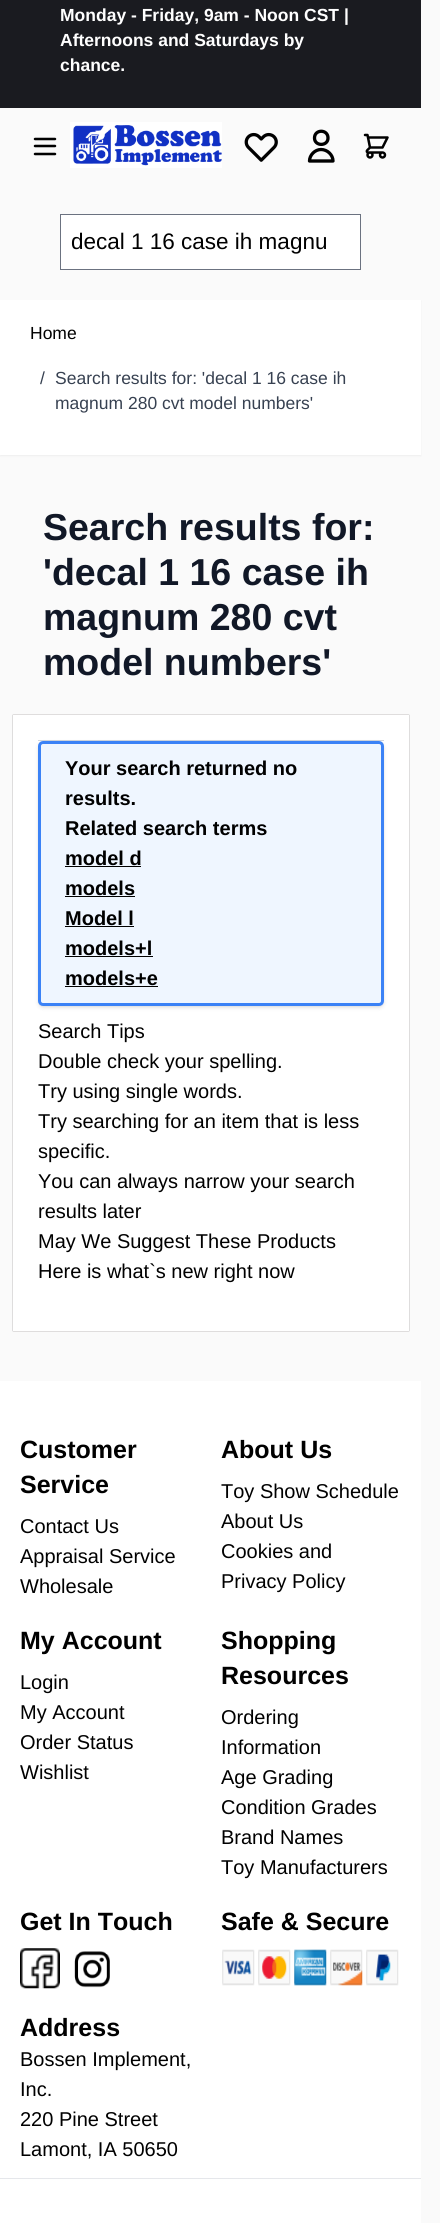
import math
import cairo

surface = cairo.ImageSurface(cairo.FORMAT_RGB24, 440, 2223)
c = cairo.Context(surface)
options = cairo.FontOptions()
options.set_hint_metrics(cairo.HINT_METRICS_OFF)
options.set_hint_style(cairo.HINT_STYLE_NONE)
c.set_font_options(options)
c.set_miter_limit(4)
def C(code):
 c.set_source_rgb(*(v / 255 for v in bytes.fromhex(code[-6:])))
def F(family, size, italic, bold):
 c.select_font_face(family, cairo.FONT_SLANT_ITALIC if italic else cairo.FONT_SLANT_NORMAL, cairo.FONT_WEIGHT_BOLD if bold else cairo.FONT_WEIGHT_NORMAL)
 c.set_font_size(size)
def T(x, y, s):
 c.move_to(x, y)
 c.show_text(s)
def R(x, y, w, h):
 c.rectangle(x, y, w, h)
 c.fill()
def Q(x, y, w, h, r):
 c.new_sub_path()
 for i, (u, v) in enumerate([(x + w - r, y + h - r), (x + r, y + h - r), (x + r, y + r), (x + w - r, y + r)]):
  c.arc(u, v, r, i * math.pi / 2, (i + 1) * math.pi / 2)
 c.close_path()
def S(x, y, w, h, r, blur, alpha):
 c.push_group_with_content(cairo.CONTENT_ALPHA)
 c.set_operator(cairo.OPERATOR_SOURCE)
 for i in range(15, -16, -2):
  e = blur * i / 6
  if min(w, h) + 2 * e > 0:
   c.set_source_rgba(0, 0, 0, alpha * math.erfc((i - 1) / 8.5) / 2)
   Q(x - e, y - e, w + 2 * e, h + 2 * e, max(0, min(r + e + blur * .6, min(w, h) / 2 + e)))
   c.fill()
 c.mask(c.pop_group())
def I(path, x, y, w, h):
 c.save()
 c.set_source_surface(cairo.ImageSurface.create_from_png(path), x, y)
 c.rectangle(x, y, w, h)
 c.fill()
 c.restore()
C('fafafa')
c.paint()
C('1a1b20')
R(0,0,421,108)
F('Liberation Sans',17.5,0,1)
C('ffffff')
T(60,21,'Monday - Friday, 9am - Noon CST |')
T(60,46,'Afternoons and Saturdays by')
T(60,71,'chance.')
c.new_path()
c.move_to(35,139)
c.line_to(55,139)
c.move_to(35,146)
c.line_to(55,146)
c.move_to(35,154)
c.line_to(55,154)
C('000000')
c.set_line_width(2.5)
c.set_line_cap(cairo.LINE_CAP_ROUND)
c.set_line_join(cairo.LINE_JOIN_ROUND)
c.stroke()
I('1.png',70,122,152,46)
I('2.png',244,132,34,30)
c.new_path()
c.move_to(328,138)
c.curve_to(328,146.5,314.5,146.5,314.5,138)
c.curve_to(314.5,129,328,129,328,138)
c.close_path()
c.move_to(321,149.5)
c.curve_to(315,149.5,309.5,155,309.5,161)
c.line_to(333,161)
c.curve_to(333,155,327.5,149.5,321,149.5)
c.close_path()
c.set_line_width(3.3)
c.stroke()
I('3.png',363,133,26,26)
C('ffffff')
c.rectangle(60.5,214.5,300,55)
c.fill_preserve()
C('6b7280')
c.set_line_width(1)
c.set_line_cap(cairo.LINE_CAP_BUTT)
c.set_line_join(cairo.LINE_JOIN_MITER)
c.stroke()
F('Liberation Sans',22.5,0,0)
C('000000')
T(71,249,'decal 1 16 case ih magnu')
C('000000')
S(0,301,421,155,0,1,.05)
C('ffffff')
R(0,300,421,155)
F('Liberation Sans',17.5,0,0)
C('000000')
T(30,339,'Home')
C('374151')
T(40,384,'/')
T(55,384,'Search results for: \'decal 1 16 case ih')
T(55,409,'magnum 280 cvt model numbers\'')
F('Liberation Sans',37.5,0,1)
C('111827')
T(43,540,'Search results for:')
T(43,585,'\'decal 1 16 case ih')
T(43,630,'magnum 280 cvt')
T(43,675,'model numbers\'')
C('8c8686')
S(13,715,396,616,0,.5,1)
C('ffffff')
R(13,715,396,616)
C('d1d5db')
R(38,740,346,1)
C('000000')
S(39,744,344,262,4,1,.1)
S(38,743,346,265,5,2,.1)
C('eff6ff')
Q(39.5,742.5,343,262,3.5)
c.fill_preserve()
C('3b82f6')
c.set_line_width(3)
c.stroke()
F('Liberation Sans',20,0,1)
C('000000')
T(65,775,'Your search returned no')
T(65,805,'results.')
T(65,835,'Related search terms')
T(65,865,'model d')
R(65,866,76,1)
T(65,895,'models')
R(65,896,70,1)
T(65,925,'Model l')
R(65,926,69,1)
T(65,955,'models+l')
R(65,956,88,1)
T(65,985,'models+e')
R(65,986,93,1)
F('Liberation Sans',20,0,0)
T(38,1038,'Search Tips')
T(38,1068,'Double check your spelling.')
T(38,1098,'Try using single words.')
T(38,1128,'Try searching for an item that is less')
T(38,1158,'specific.')
T(38,1188,'You can always narrow your search')
T(38,1218,'results later')
T(38,1248,'May We Suggest These Products')
T(38,1278,'Here is what`s new right now')
C('ffffff')
R(0,1381,421,797)
F('Liberation Sans',25,0,1)
C('000000')
T(20,1458,'Customer')
T(20,1493,'Service')
F('Liberation Sans',20,0,0)
T(20,1533,'Contact Us')
T(20,1563,'Appraisal Service')
T(20,1593,'Wholesale')
F('Liberation Sans',25,0,1)
T(221,1458,'About Us')
F('Liberation Sans',20,0,0)
T(221,1498,'Toy Show Schedule')
T(221,1528,'About Us')
T(221,1558,'Cookies and')
T(221,1588,'Privacy Policy')
F('Liberation Sans',25,0,1)
T(20,1649,'My Account')
F('Liberation Sans',20,0,0)
T(20,1689,'Login')
T(20,1719,'My Account')
T(20,1749,'Order Status')
T(20,1779,'Wishlist')
F('Liberation Sans',25,0,1)
T(221,1649,'Shopping')
T(221,1684,'Resources')
F('Liberation Sans',20,0,0)
T(221,1724,'Ordering')
T(221,1754,'Information')
T(221,1784,'Age Grading')
T(221,1814,'Condition Grades')
T(221,1844,'Brand Names')
T(221,1874,'Toy Manufacturers')
F('Liberation Sans',25,0,1)
T(20,1930,'Get In Touch')
I('4.png',20,1948,40,41)
I('5.png',74,1951,36,37)
T(221,1930,'Safe & Secure')
I('6.png',222,1949,177,37)
T(20,2036,'Address')
F('Liberation Sans',20,0,0)
T(20,2066,'Bossen Implement,')
T(20,2096,'Inc.')
T(20,2126,'220 Pine Street')
T(20,2156,'Lamont, IA 50650')
C('ffffff')
R(0,2179,421,44)
C('e5e7eb')
R(0,2178,421,1)
surface.write_to_png('o.png')
